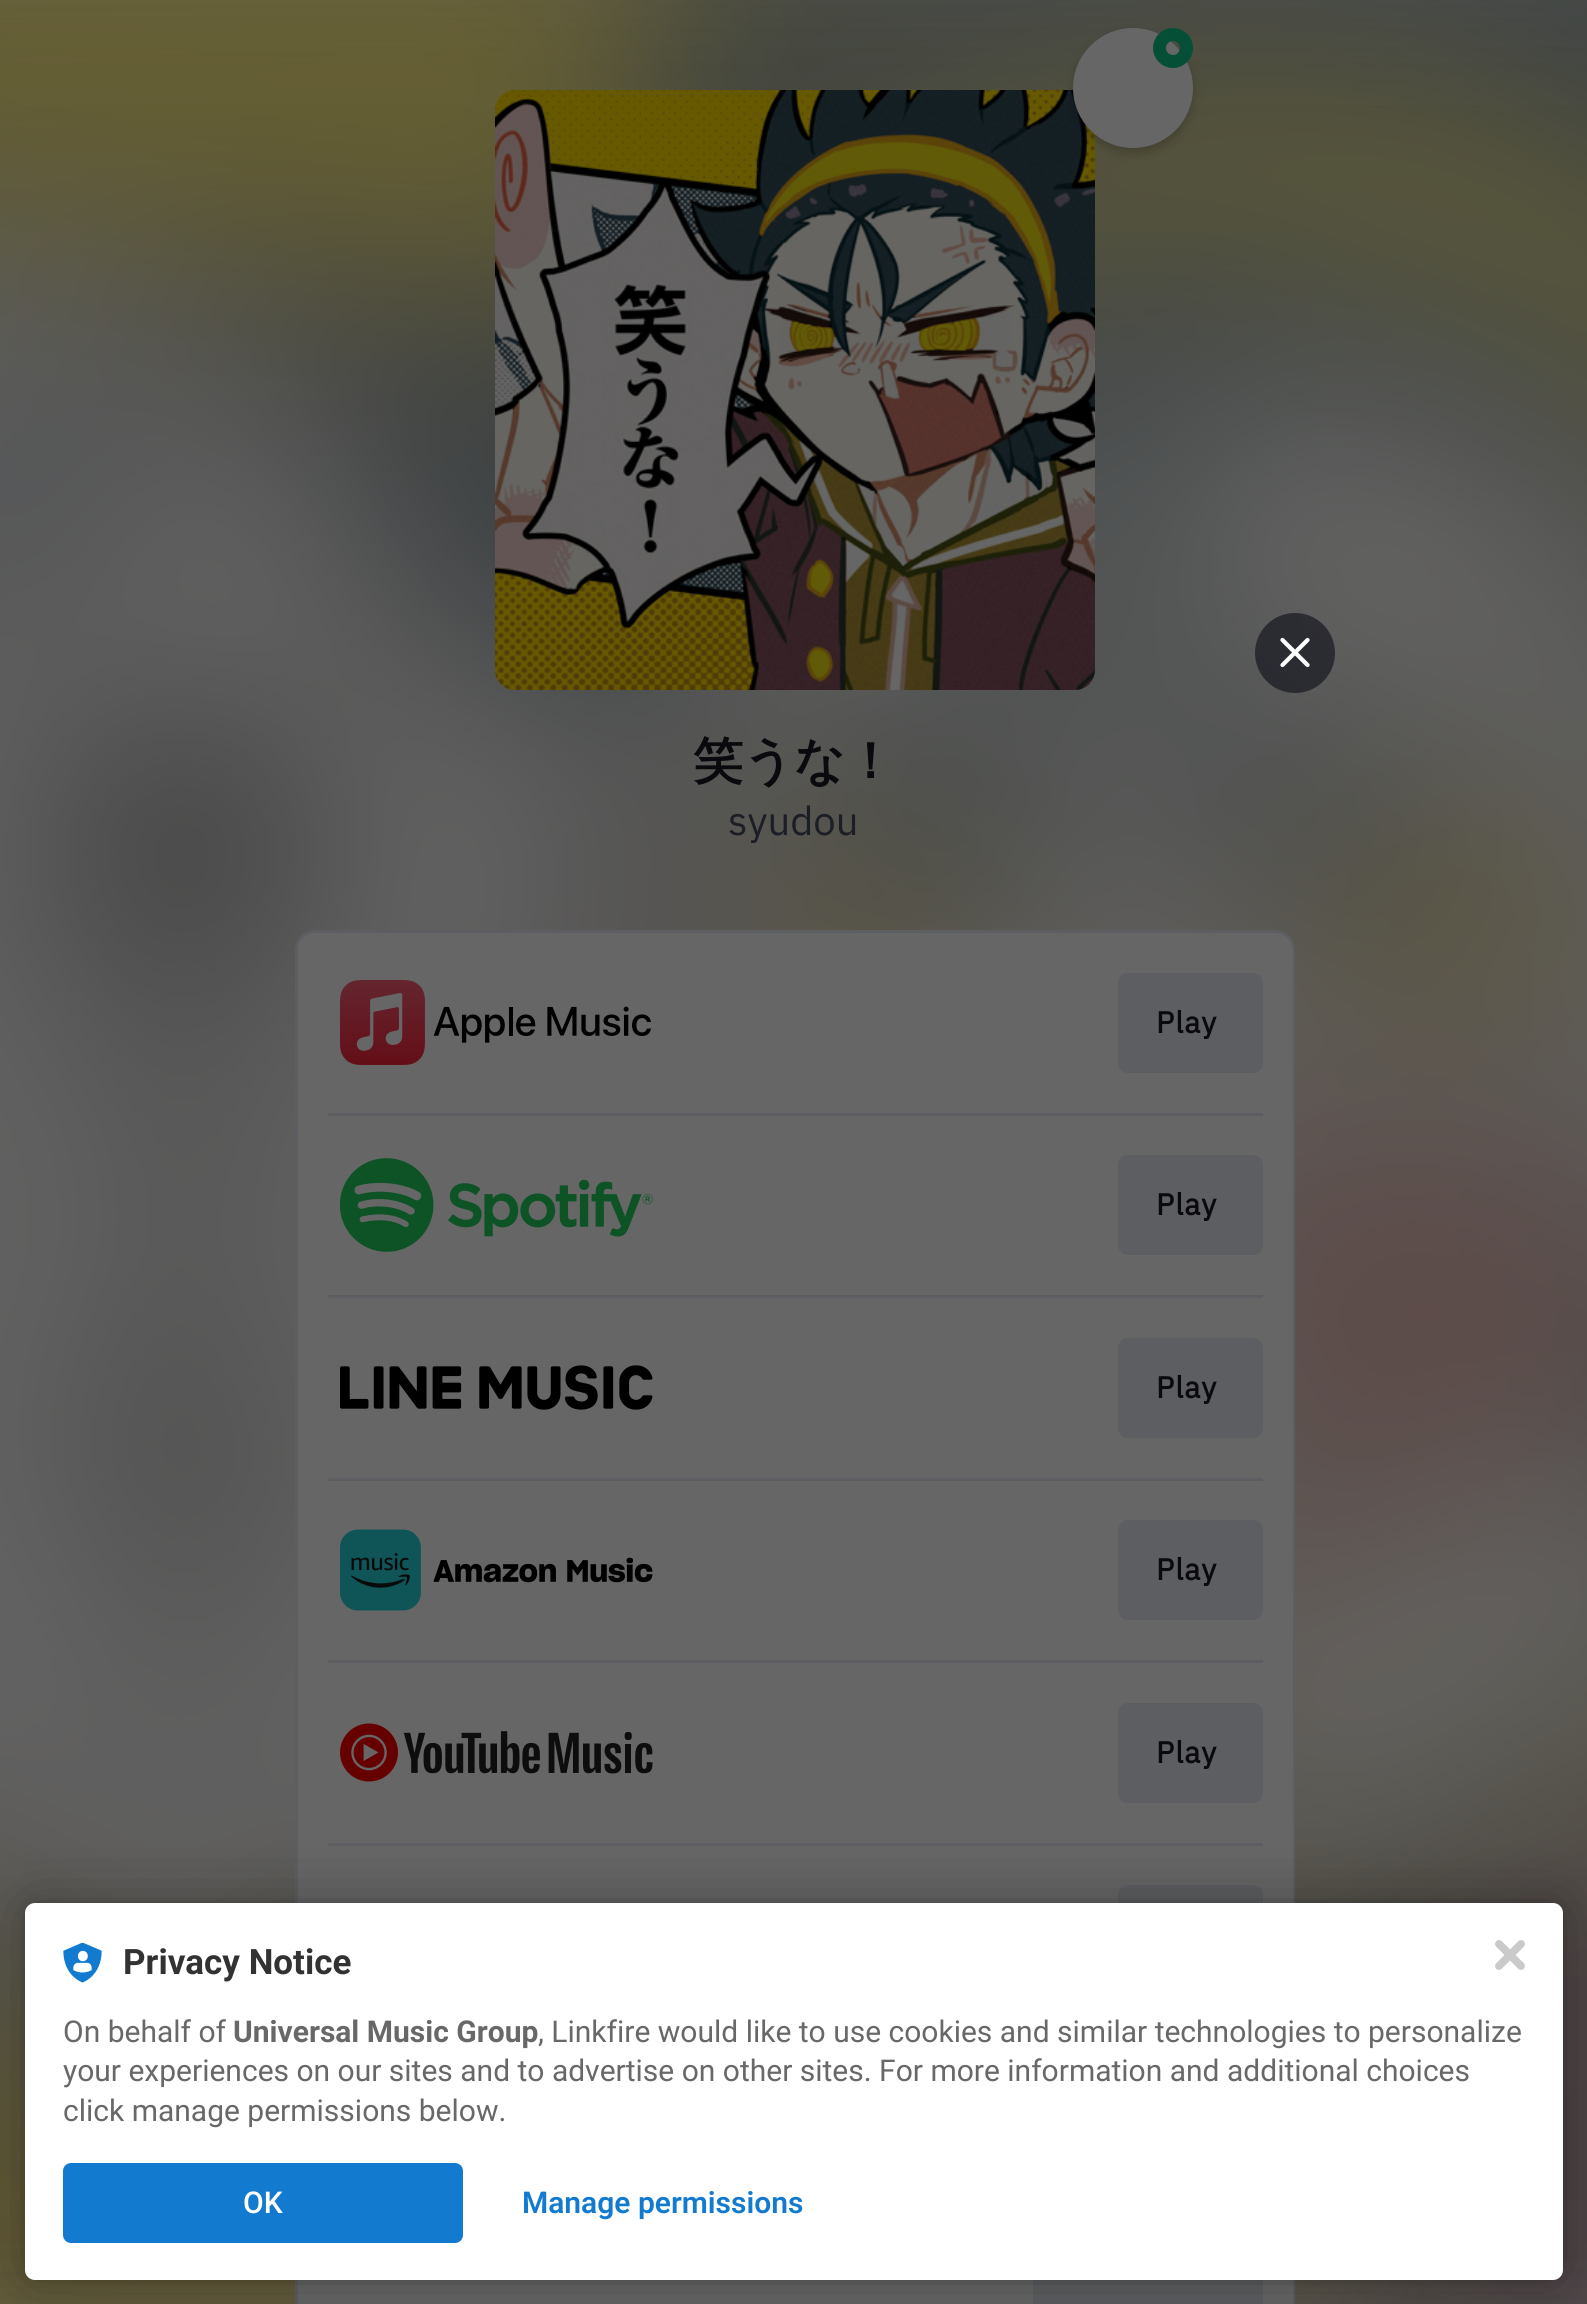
import math
import cairo

surface = cairo.ImageSurface(cairo.FORMAT_RGB24, 1587, 2304)
c = cairo.Context(surface)
options = cairo.FontOptions()
options.set_hint_metrics(cairo.HINT_METRICS_OFF)
options.set_hint_style(cairo.HINT_STYLE_NONE)
c.set_font_options(options)
c.set_miter_limit(4)
def C(code):
 c.set_source_rgb(*(v / 255 for v in bytes.fromhex(code[-6:])))
def F(family, size, italic, bold):
 c.select_font_face(family, cairo.FONT_SLANT_ITALIC if italic else cairo.FONT_SLANT_NORMAL, cairo.FONT_WEIGHT_BOLD if bold else cairo.FONT_WEIGHT_NORMAL)
 c.set_font_size(size)
def T(x, y, s):
 c.move_to(x, y)
 c.show_text(s)
def L(x, y, s, letter, word):
 c.move_to(x, y)
 for ch in s:
  c.show_text(ch)
  c.rel_move_to(letter + word * (ch == ' '), 0)
def R(x, y, w, h):
 c.rectangle(x, y, w, h)
 c.fill()
def Q(x, y, w, h, r):
 c.new_sub_path()
 for i, (u, v) in enumerate([(x + w - r, y + h - r), (x + r, y + h - r), (x + r, y + r), (x + w - r, y + r)]):
  c.arc(u, v, r, i * math.pi / 2, (i + 1) * math.pi / 2)
 c.close_path()
def S(x, y, w, h, r, blur, alpha):
 c.push_group_with_content(cairo.CONTENT_ALPHA)
 c.set_operator(cairo.OPERATOR_SOURCE)
 for i in range(15, -16, -2):
  e = blur * i / 6
  if min(w, h) + 2 * e > 0:
   c.set_source_rgba(0, 0, 0, alpha * math.erfc((i - 1) / 8.5) / 2)
   Q(x - e, y - e, w + 2 * e, h + 2 * e, max(0, min(r + e + blur * .6, min(w, h) / 2 + e)))
   c.fill()
 c.mask(c.pop_group())
def I(path, x, y, w, h):
 c.save()
 c.set_source_surface(cairo.ImageSurface.create_from_png(path), x, y)
 c.rectangle(x, y, w, h)
 c.fill()
 c.restore()
C('666666')
c.paint()
I('1.png',0,0,1587,2304)
I('2.png',495,90,600,600)
C('000000')
S(1073,33,120,120,60,5,.2)
C('666666')
c.arc(1133,88,60,0,2 * math.pi)
c.fill()
c.arc(1173,48,13.5,0,2 * math.pi)
C('054f36')
c.set_line_width(13)
c.stroke()
c.set_source_rgba(0.094,0.09,0.129,0.7)
c.arc(1295,653,40,0,2 * math.pi)
c.fill()
c.new_path()
c.move_to(1282.5,640)
c.line_to(1307.5,665)
c.move_to(1282.5,665)
c.line_to(1307.5,640)
C('ffffff')
c.set_line_width(4.2)
c.set_line_cap(cairo.LINE_CAP_ROUND)
c.set_line_join(cairo.LINE_JOIN_ROUND)
c.stroke()
F('WenQuanYi Zen Hei',50,0,1)
C('0a090d')
T(693,778,'笑うな！')
F('IBM Plex Sans',40,0,0)
C('1c1e26')
T(728,835,'syudou')
C('666666')
Q(296.5,931.5,997,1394,18.5)
c.fill_preserve()
C('5c5e61')
c.set_line_width(3)
c.set_line_cap(cairo.LINE_CAP_BUTT)
c.set_line_join(cairo.LINE_JOIN_MITER)
c.stroke()
C('666666')
Q(298,933,995,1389,18)
c.fill()
I('3.png',340,980,311,85)
C('5c5e61')
Q(1118,973,145,100,10)
c.fill()
F('IBM Plex Sans',30,0,1)
C('0a090d')
L(1156,1033,'Play',1,0)
C('5c5e61')
R(328,1113,935,3)
I('4.png',340,1158,313,94)
Q(1118,1155,145,100,10)
c.fill()
C('0a090d')
L(1156,1215,'Play',1,0)
C('5c5e61')
R(328,1295,935,3)
I('5.png',340,1365,313,45)
Q(1118,1338,145,100,10)
c.fill()
C('0a090d')
L(1156,1398,'Play',1,0)
C('5c5e61')
R(328,1478,935,3)
I('6.png',340,1529,313,82)
Q(1118,1520,145,100,10)
c.fill()
C('0a090d')
L(1156,1580,'Play',1,0)
C('5c5e61')
R(328,1660,935,3)
I('7.png',340,1723,313,59)
Q(1118,1703,145,100,10)
c.fill()
C('0a090d')
L(1156,1763,'Play',1,0)
C('5c5e61')
R(328,1843,935,3)
Q(1118,1885,145,100,10)
c.fill()
R(1033,2280,230,24)
C('000000')
S(25,1903,1538,377,10,5,.12)
S(25,1903,1538,377,10,30,.3)
C('ffffff')
Q(25,1903,1538,377,10)
c.fill()
I('8.png',1495,1940,30,30)
I('9.png',63,1943,39,40)
F('Roboto',35,0,1)
C('323232')
T(123,1974,'Privacy Notice')
F('Roboto',30,0,0)
C('686868')
T(63,2042,'On behalf of')
F('Roboto',30,0,1)
T(233,2042,'Universal Music Group')
F('Roboto',30,0,0)
T(538,2042,', Linkfire would like to use cookies and similar technologies to personalize')
T(63,2081,'your experiences on our sites and to advertise on other sites. For more information and additional choices')
T(63,2121,'click manage permissions below.')
C('137bcf')
Q(63,2163,400,80,8)
c.fill()
F('Roboto Medium',30,0,0)
C('ffffff')
T(243,2213,'OK')
F('Roboto SemiBold',30,0,0)
C('137bcf')
T(522,2213,'Manage permissions')
surface.write_to_png('o.png')
